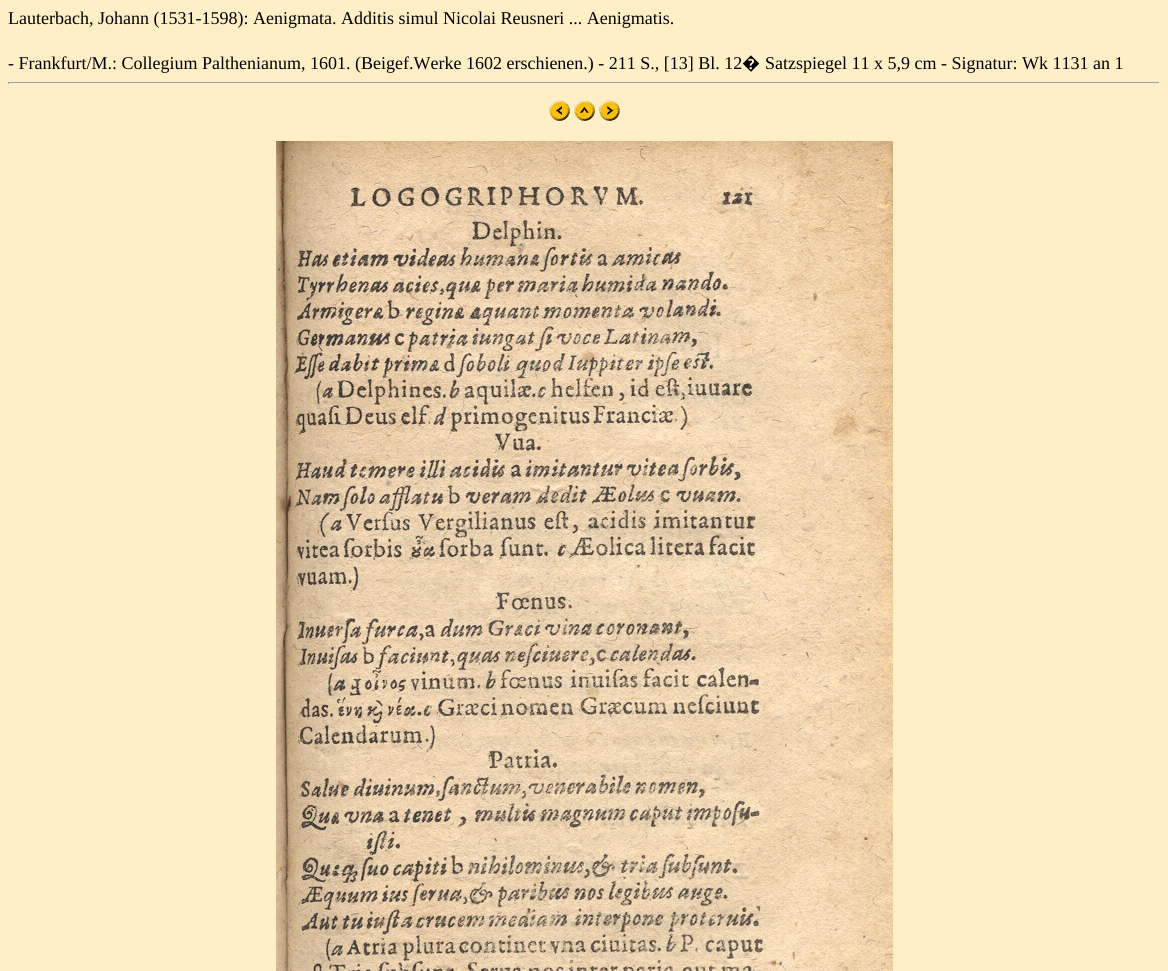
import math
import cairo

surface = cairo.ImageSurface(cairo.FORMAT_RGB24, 1168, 971)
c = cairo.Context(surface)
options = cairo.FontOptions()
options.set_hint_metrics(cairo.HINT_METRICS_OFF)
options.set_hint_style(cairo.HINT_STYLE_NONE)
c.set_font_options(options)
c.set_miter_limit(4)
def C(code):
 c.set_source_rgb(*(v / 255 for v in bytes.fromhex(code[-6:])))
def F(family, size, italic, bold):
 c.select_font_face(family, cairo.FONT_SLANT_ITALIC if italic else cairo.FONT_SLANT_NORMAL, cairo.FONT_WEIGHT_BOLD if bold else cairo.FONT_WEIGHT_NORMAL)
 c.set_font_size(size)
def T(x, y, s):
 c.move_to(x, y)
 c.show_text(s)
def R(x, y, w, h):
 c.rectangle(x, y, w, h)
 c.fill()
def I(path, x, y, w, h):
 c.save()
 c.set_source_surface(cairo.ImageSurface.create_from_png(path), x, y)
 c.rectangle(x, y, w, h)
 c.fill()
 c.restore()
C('ffefc6')
c.paint()
F('Liberation Serif',18,0,0)
C('000000')
T(8,24,'Lauterbach, Johann (1531-1598): Aenigmata. Additis simul Nicolai Reusneri ... Aenigmatis.')
T(8,69,'- Frankfurt/M.: Collegium Palthenianum, 1601. (Beigef.Werke 1602 erschienen.) - 211 S., [13] Bl. 12')
F('Noto Sans',18,0,0)
T(742,69,'�')
F('Liberation Serif',18,0,0)
T(765,69,'Satzspiegel 11 x 5,9 cm - Signatur: Wk 1131 an 1')
C('9f9f9f')
R(8,82,1152,1)
C('eeeeee')
R(1159,82,1,2)
R(8,83,1152,1)
C('9f9f9f')
R(8,82,1,2)
I('1.png',549,100,21,21)
I('2.png',574,100,21,21)
I('3.png',599,100,21,21)
I('4.png',276,141,617,830)
surface.write_to_png('o.png')
